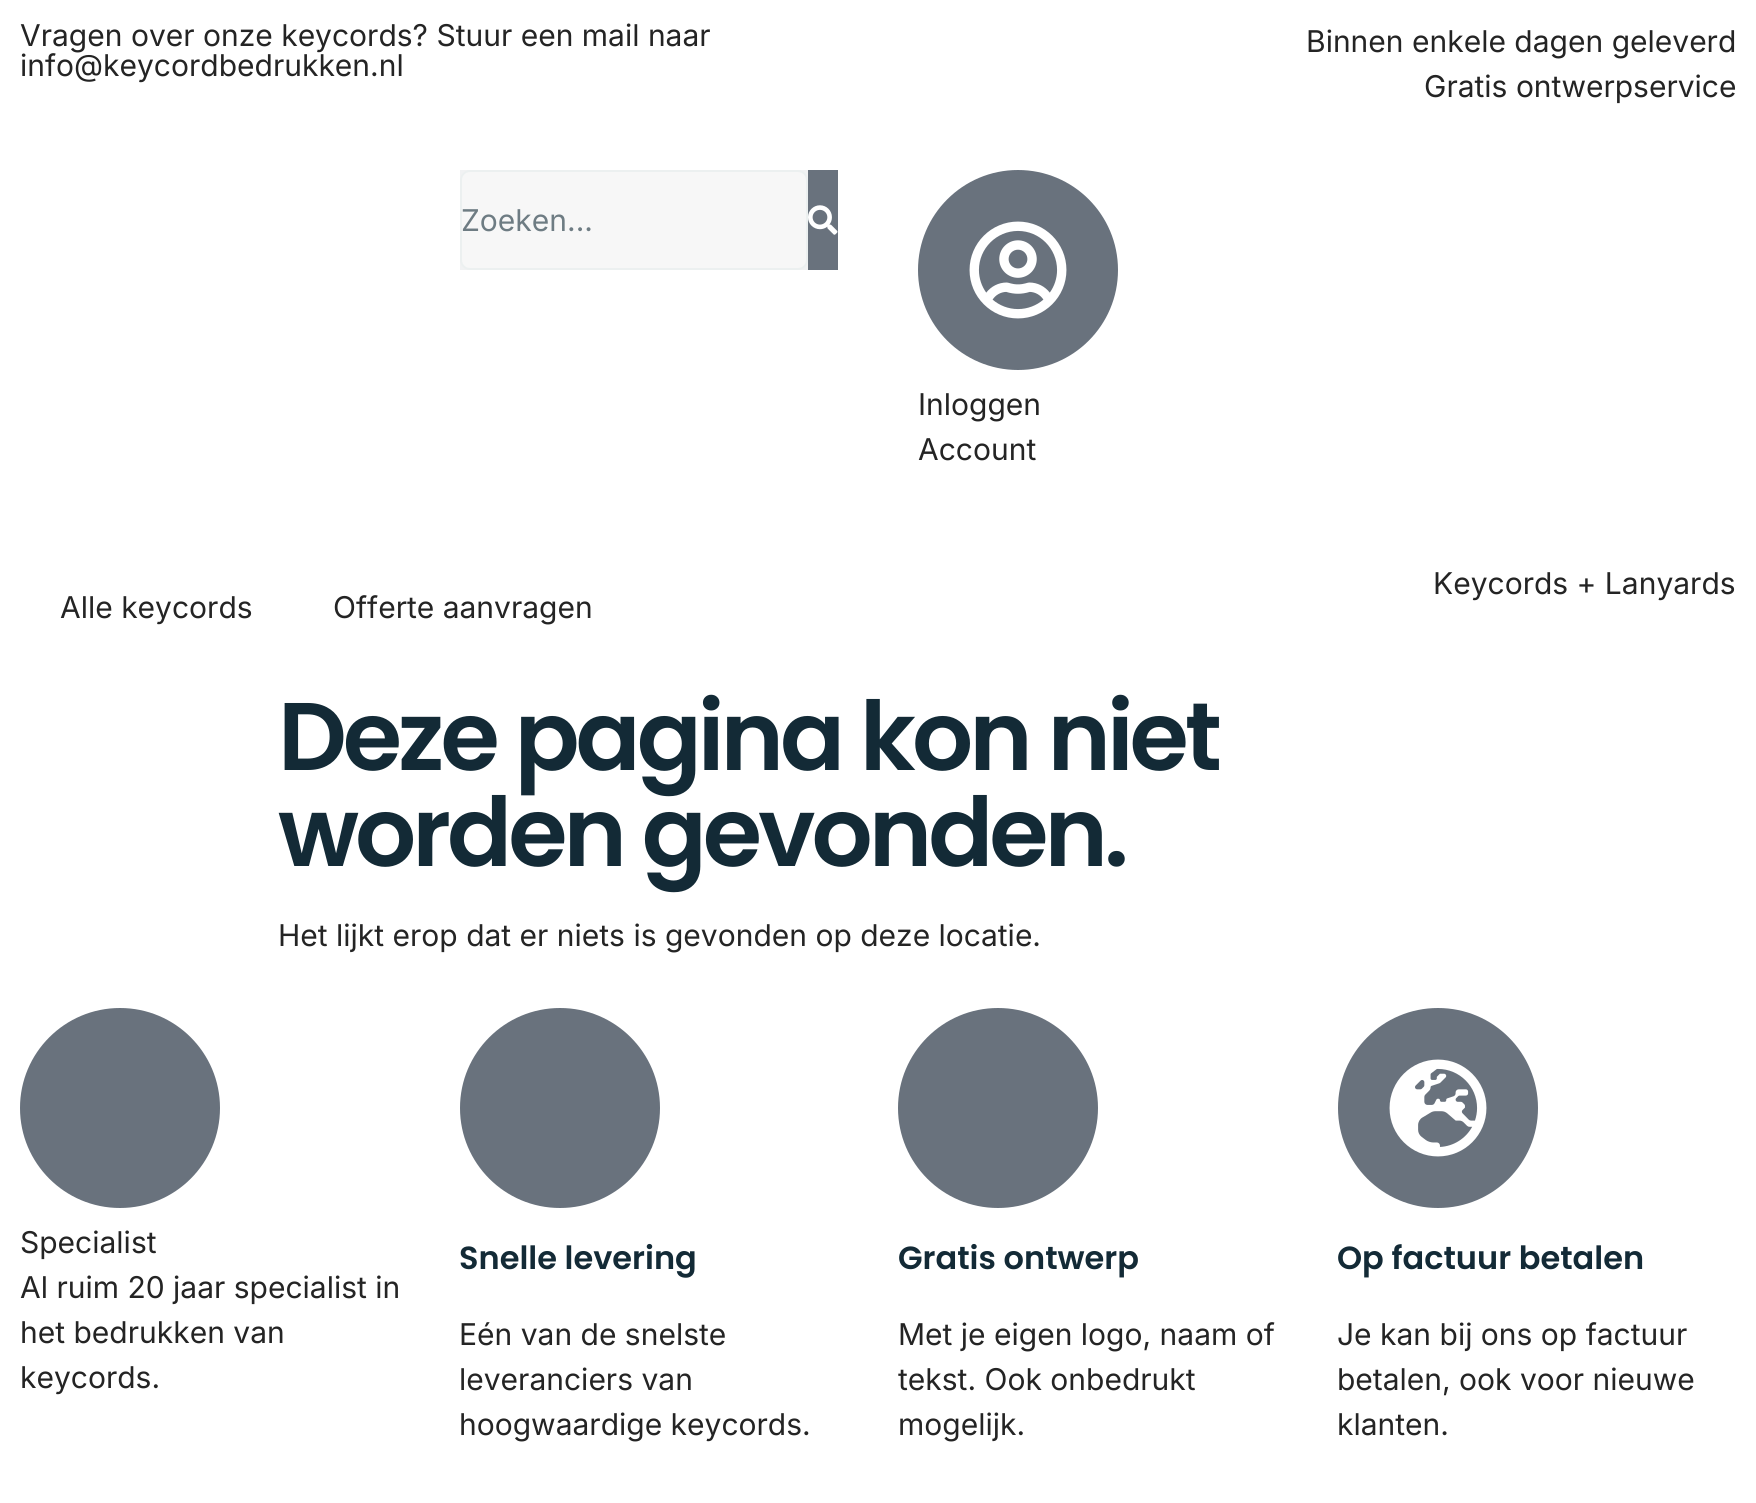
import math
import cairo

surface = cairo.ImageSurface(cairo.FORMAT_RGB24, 1756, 1503)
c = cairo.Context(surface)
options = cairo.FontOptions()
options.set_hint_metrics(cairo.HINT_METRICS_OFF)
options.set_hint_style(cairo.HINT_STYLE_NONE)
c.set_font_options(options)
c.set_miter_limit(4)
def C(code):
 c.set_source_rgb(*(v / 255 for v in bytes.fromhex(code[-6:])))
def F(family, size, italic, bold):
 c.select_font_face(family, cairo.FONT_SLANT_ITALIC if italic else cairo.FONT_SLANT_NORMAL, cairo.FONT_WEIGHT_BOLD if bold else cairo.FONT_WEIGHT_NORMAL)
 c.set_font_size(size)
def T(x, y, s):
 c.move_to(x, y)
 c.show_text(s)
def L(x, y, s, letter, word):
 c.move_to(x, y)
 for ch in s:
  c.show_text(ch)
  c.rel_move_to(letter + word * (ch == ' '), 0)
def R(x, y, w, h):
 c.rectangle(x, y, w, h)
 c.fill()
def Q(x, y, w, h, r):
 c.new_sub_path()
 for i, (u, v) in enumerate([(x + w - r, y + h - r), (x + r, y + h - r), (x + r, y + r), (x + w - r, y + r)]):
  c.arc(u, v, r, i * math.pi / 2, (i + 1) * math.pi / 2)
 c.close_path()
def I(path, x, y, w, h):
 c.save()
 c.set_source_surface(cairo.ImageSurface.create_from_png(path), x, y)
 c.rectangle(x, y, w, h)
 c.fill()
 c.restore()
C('ffffff')
c.paint()
F('Inter',30,0,0)
C('242424')
T(20,46,'Vragen over onze keycords? Stuur een mail naar')
T(20,76,'info@keycordbedrukken.nl')
T(1306,52,'Binnen enkele dagen geleverd')
T(1424,97,'Gratis ontwerpservice')
C('f1f2f3')
R(460,170,348,100)
C('f7f7f7')
Q(461,171,346,98,9)
c.fill_preserve()
C('ecf0f0')
c.stroke()
C('6e7c83')
T(461,231,'Zoeken...')
C('69727d')
R(808,170,30,100)
I('1.png',808,205,30,30)
c.arc(1018,270,100,0,2 * math.pi)
c.fill()
I('2.png',969,221,98,98)
C('242424')
T(918,415,'Inloggen')
T(918,460,'Account')
T(1433,594,'Keycords + Lanyards')
T(60,618,'Alle keycords')
T(333,618,'Offerte aanvragen')
F('Poppins SemiBold',96,0,0)
C('132a36')
L(278,770,'Deze pagina kon niet',-4,0)
L(278,866,'worden gevonden.',-4,0)
F('Inter',30,0,0)
C('242424')
T(278,946,'Het lijkt erop dat er niets is gevonden op deze locatie.')
C('69727d')
c.new_path()
c.arc(120,1108,100,0,2 * math.pi)
c.fill()
C('242424')
T(20,1253,'Specialist')
T(20,1298,'Al ruim 20 jaar specialist in')
T(20,1343,'het bedrukken van')
T(20,1388,'keycords.')
C('69727d')
c.new_path()
c.arc(560,1108,100,0,2 * math.pi)
c.fill()
F('Poppins SemiBold',32,0,0)
C('132a36')
T(459,1269,'Snelle levering')
F('Inter',30,0,0)
C('242424')
T(459,1345,'Eén van de snelste')
T(459,1390,'leveranciers van')
T(459,1435,'hoogwaardige keycords.')
C('69727d')
c.new_path()
c.arc(998,1108,100,0,2 * math.pi)
c.fill()
F('Poppins SemiBold',32,0,0)
C('132a36')
T(898,1269,'Gratis ontwerp')
F('Inter',30,0,0)
C('242424')
T(898,1345,'Met je eigen logo, naam of')
T(898,1390,'tekst. Ook onbedrukt')
T(898,1435,'mogelijk.')
C('69727d')
c.new_path()
c.arc(1438,1108,100,0,2 * math.pi)
c.fill()
I('3.png',1389,1059,98,98)
F('Poppins SemiBold',32,0,0)
C('132a36')
T(1337,1269,'Op factuur betalen')
F('Inter',30,0,0)
C('242424')
T(1337,1345,'Je kan bij ons op factuur')
T(1337,1390,'betalen, ook voor nieuwe')
T(1337,1435,'klanten.')
surface.write_to_png('o.png')
